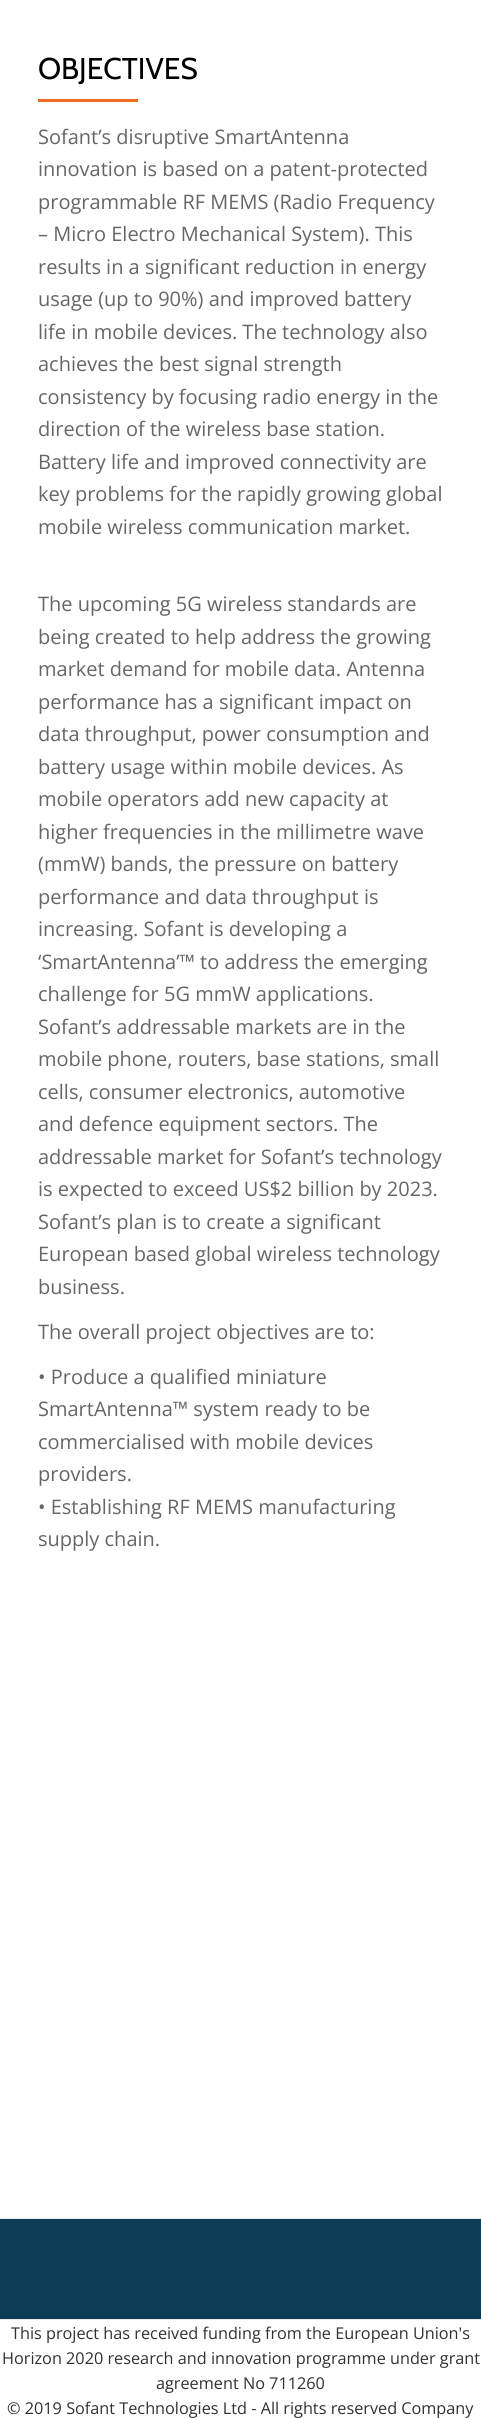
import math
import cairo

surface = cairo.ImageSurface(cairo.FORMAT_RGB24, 481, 2418)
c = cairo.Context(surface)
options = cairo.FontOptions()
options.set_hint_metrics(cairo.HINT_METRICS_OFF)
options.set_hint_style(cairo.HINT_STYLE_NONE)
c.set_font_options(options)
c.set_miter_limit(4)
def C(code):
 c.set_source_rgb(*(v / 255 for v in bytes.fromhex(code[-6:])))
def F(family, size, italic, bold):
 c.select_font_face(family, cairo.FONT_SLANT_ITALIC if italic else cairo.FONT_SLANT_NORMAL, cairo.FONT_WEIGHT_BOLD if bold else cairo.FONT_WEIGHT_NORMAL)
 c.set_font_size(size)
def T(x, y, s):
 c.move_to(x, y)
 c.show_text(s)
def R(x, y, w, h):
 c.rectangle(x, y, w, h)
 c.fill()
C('ffffff')
c.paint()
F('Cabin',30,0,0)
C('000000')
T(38,79,'OBJECTIVES')
C('f16c20')
R(38,99,100,3)
F('Open Sans',20,0,0)
C('666666')
T(38,144,'Sofant’s disruptive SmartAntenna')
T(38,176,'innovation is based on a patent-protected')
T(38,209,'programmable RF MEMS (Radio Frequency')
T(38,241,'– Micro Electro Mechanical System). This')
T(38,274,'results in a significant reduction in energy')
T(38,306,'usage (up to 90%) and improved battery')
T(38,339,'life in mobile devices. The technology also')
T(38,371,'achieves the best signal strength')
T(38,404,'consistency by focusing radio energy in the')
T(38,436,'direction of the wireless base station.')
T(38,469,'Battery life and improved connectivity are')
T(38,501,'key problems for the rapidly growing global')
T(38,534,'mobile wireless communication market.')
T(38,611,'The upcoming 5G wireless standards are')
T(38,644,'being created to help address the growing')
T(38,676,'market demand for mobile data. Antenna')
T(38,709,'performance has a significant impact on')
T(38,741,'data throughput, power consumption and')
T(38,774,'battery usage within mobile devices. As')
T(38,806,'mobile operators add new capacity at')
T(38,839,'higher frequencies in the millimetre wave')
T(38,871,'(mmW) bands, the pressure on battery')
T(38,904,'performance and data throughput is')
T(38,936,'increasing. Sofant is developing a')
T(38,969,'‘SmartAntenna’™ to address the emerging')
T(38,1001,'challenge for 5G mmW applications.')
T(38,1034,'Sofant’s addressable markets are in the')
T(38,1066,'mobile phone, routers, base stations, small')
T(38,1099,'cells, consumer electronics, automotive')
T(38,1131,'and defence equipment sectors. The')
T(38,1164,'addressable market for Sofant’s technology')
T(38,1196,'is expected to exceed US$2 billion by 2023.')
T(38,1229,'Sofant’s plan is to create a significant')
T(38,1261,'European based global wireless technology')
T(38,1294,'business.')
T(38,1339,'The overall project objectives are to:')
T(38,1384,'• Produce a qualified miniature')
T(38,1416,'SmartAntenna™ system ready to be')
T(38,1449,'commercialised with mobile devices')
T(38,1481,'providers.')
T(38,1514,'• Establishing RF MEMS manufacturing')
T(38,1546,'supply chain.')
C('0d3c55')
R(0,2219,481,100)
C('eaebec')
R(0,2218,481,1)
R(0,2319,481,1)
F('Open Sans',16.25,0,0)
C('313131')
T(11,2339,'This project has received funding from the European Union\'s')
T(2,2364,'Horizon 2020 research and innovation programme under grant')
T(156,2389,'agreement No 711260')
T(7,2414,'© 2019 Sofant Technologies Ltd - All rights reserved Company')
surface.write_to_png('o.png')
